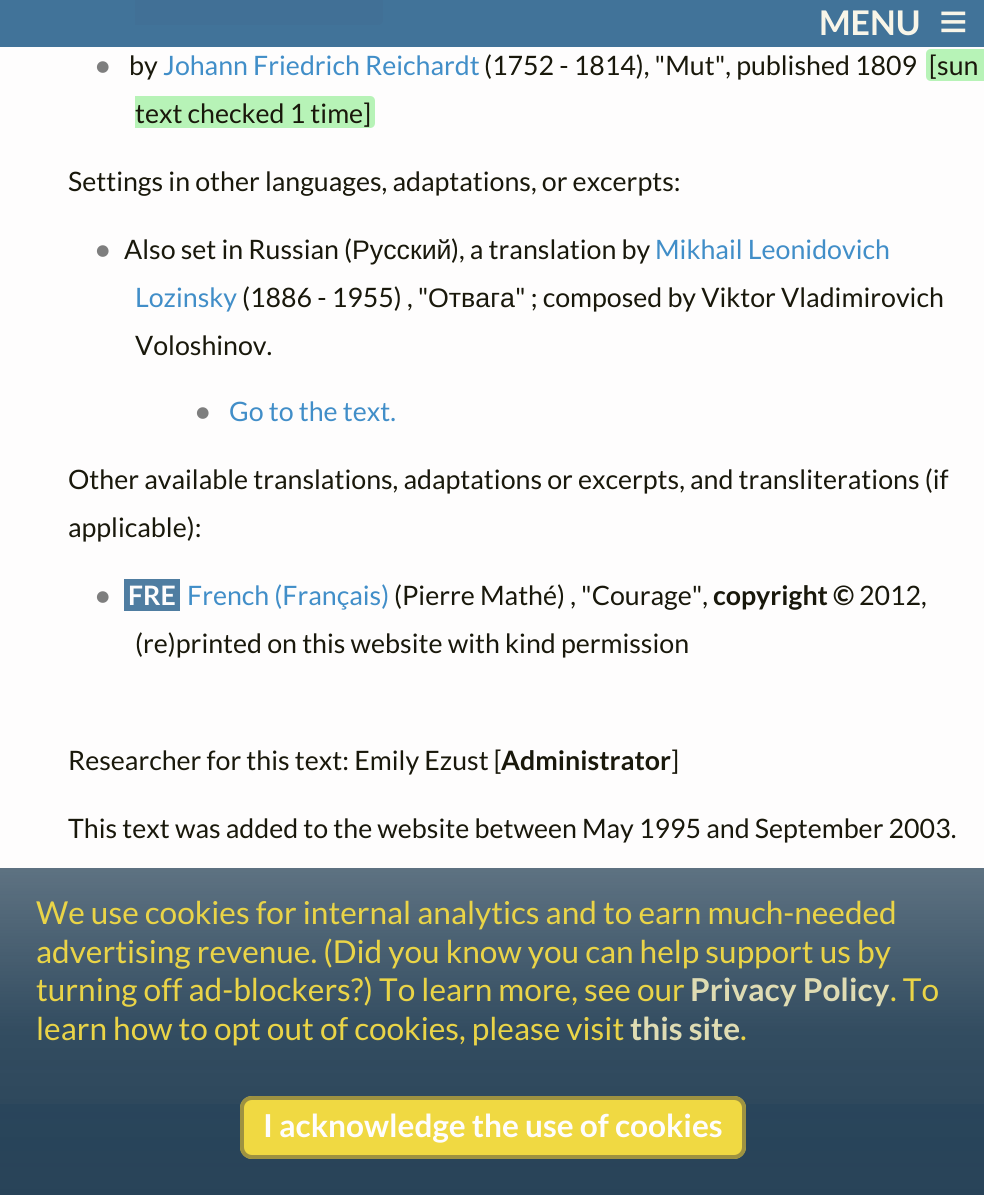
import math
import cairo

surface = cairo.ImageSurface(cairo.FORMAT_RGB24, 984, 1195)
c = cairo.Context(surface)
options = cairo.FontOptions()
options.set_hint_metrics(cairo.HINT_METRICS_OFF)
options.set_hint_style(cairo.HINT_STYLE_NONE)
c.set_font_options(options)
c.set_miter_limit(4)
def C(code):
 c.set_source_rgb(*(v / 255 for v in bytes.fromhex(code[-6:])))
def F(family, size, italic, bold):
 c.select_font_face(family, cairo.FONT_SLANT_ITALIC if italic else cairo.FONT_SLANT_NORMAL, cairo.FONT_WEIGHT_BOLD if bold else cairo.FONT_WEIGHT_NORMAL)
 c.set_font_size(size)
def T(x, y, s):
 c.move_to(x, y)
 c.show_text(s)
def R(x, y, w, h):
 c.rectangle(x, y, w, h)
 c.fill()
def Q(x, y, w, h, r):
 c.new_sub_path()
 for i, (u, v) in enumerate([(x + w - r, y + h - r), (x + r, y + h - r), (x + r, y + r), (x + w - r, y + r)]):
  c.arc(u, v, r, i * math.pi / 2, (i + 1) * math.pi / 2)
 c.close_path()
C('fefdfd')
c.paint()
C('417399')
R(0,0,984,47)
F('Lato',34,0,1)
C('f8f5e8')
T(819,35,'MENU')
F('Liberation Sans',49,0,0)
T(939,38,'≡')
C('417096')
c.new_path()
c.move_to(135,-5)
c.line_to(378,-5)
c.curve_to(381,-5,383,-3,383,0)
c.line_to(383,20)
c.curve_to(383,23,381,25,378,25)
c.line_to(135,25)
c.close_path()
c.fill()
F('Lato',26.75,0,1)
C('7e7e7e')
T(95,75,'•')
F('Lato',26.75,0,0)
C('19180b')
T(129,75,'by')
C('418ec8')
T(163,75,'Johann Friedrich Reichardt')
C('19180b')
T(484,75,'(1752 - 1814), "Mut", published 1809')
C('b7f3b7')
c.new_path()
c.move_to(931,49)
c.line_to(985,49)
c.line_to(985,81)
c.line_to(931,81)
c.curve_to(928,81,926,79,926,76)
c.line_to(926,54)
c.curve_to(926,51,928,49,931,49)
c.close_path()
c.fill()
C('19180b')
T(929,75,'[sun')
C('b7f3b7')
c.new_path()
c.move_to(135,96)
c.line_to(370,96)
c.curve_to(373,96,375,98,375,101)
c.line_to(375,123)
c.curve_to(375,126,373,128,370,128)
c.line_to(135,128)
c.close_path()
c.fill()
C('19180b')
T(135,123,'text checked 1 time]')
T(68,191,'Settings in other languages, adaptations, or excerpts:')
F('Lato',26.75,0,1)
C('7e7e7e')
T(95,259,'•')
F('Lato',26.75,0,0)
C('19180b')
T(124,259,'Also set in Russian (')
F('Liberation Sans',26.75,0,0)
T(352,259,'Русский')
F('Lato',26.75,0,0)
T(451,259,'), a translation by')
C('418ec8')
T(655,259,'Mikhail Leonidovich')
T(135,307,'Lozinsky')
C('19180b')
T(242,307,'(1886 - 1955) , "')
F('Liberation Sans',26.75,0,0)
T(428,307,'Отвага')
F('Lato',26.75,0,0)
T(515,307,'" ; composed by Viktor Vladimirovich')
T(135,355,'Voloshinov.')
F('Lato',26.75,0,1)
C('7e7e7e')
T(195,421,'•')
F('Lato',26.75,0,0)
C('418ec8')
T(229,421,'Go to the text.')
C('19180b')
T(68,489,'Other available translations, adaptations or excerpts, and transliterations (if')
T(68,537,'applicable):')
F('Lato',26.75,0,1)
C('7e7e7e')
T(95,605,'•')
C('4f7da1')
R(124,579,56,32)
C('fefdfd')
T(128,605,'FRE')
F('Lato',26.75,0,0)
C('418ec8')
T(187,605,'French (Français)')
C('19180b')
T(394,605,'(Pierre Mathé) , "Courage",')
F('Lato',26.75,0,1)
T(713,605,'copyright ©')
F('Lato',26.75,0,0)
T(859,605,'2012,')
T(135,653,'(re)printed on this website with kind permission')
T(68,770,'Researcher for this text: Emily Ezust [')
F('Lato',26.75,0,1)
T(501,770,'Administrator')
F('Lato',26.75,0,0)
T(671,770,']')
T(68,838,'This text was added to the website between May 1995 and September 2003.')
C('4d90c4')
R(0,1104,984,72)
gradient = cairo.LinearGradient(493,1195,493,868)
gradient.add_color_stop_rgba(0,0.157,0.263,0.345,1)
gradient.add_color_stop_rgba(.5,0.157,0.263,0.345,.95)
gradient.add_color_stop_rgba(1,0.157,0.263,0.345,.75)
c.set_source(gradient)
R(0,868,984,327)
F('Lato',31.6,0,0)
C('ead447')
T(36,924,'We use cookies for internal analytics and to earn much-needed')
T(36,963,'advertising revenue. (Did you know you can help support us by')
T(36,1001,'turning off ad-blockers?) To learn more, see our')
F('Lato',31.6,0,1)
C('dfdcb3')
T(690,1001,'Privacy Policy')
F('Lato',31.6,0,0)
C('ead447')
T(890,1001,'. To')
T(36,1040,'learn how to opt out of cookies, please visit')
F('Lato',31.6,0,1)
C('dfdcb3')
T(630,1040,'this site')
F('Lato',31.6,0,0)
C('ead447')
T(740,1040,'.')
C('f0d942')
Q(240,1096,506,63,12)
c.fill()
Q(242,1098,502,59,10)
c.set_source_rgba(0.565,0.525,0.255,0.85)
c.set_line_width(4)
c.stroke()
F('Lato',31.6,0,1)
C('fefdfd')
T(263,1137,'I acknowledge the use of cookies')
surface.write_to_png('o.png')
